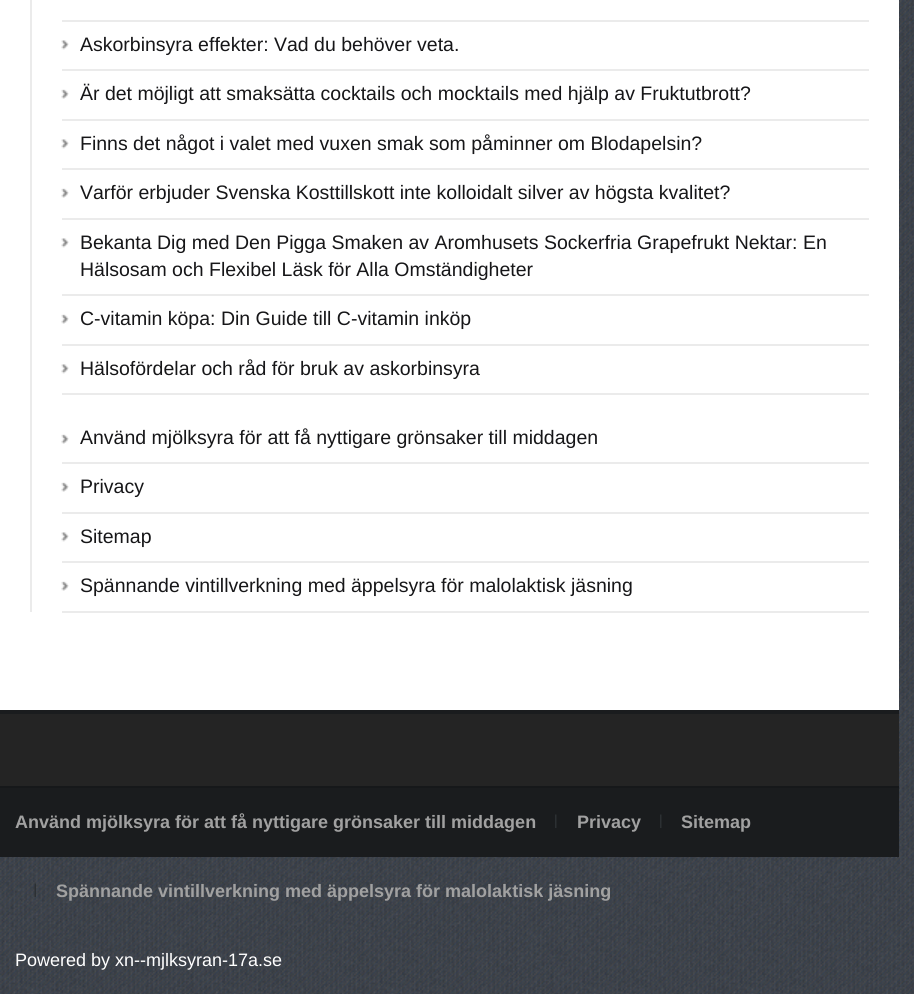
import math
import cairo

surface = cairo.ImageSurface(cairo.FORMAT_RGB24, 914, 994)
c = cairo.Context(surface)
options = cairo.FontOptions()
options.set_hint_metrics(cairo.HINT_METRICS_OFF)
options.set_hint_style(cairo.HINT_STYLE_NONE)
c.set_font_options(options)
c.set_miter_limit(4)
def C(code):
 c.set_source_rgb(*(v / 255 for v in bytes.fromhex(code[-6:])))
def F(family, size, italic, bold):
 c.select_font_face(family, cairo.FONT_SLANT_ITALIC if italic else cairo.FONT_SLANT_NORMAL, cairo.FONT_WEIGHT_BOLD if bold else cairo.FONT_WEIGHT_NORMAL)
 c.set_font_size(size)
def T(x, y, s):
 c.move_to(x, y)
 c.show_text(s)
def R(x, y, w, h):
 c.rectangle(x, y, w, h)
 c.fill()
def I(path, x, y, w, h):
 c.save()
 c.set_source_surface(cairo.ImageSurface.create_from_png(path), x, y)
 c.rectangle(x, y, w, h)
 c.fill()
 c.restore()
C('ffffff')
c.paint()
I('1.png',0,0,914,994)
C('ffffff')
R(0,0,899,710)
C('ebebeb')
R(30,0,2,612)
R(62,20,807,2)
I('2.png',61,40,8,10)
R(62,69,807,2)
F('Liberation Sans',19.5,0,0)
C('161618')
T(80,51,'Askorbinsyra effekter: Vad du behöver veta.')
I('3.png',61,89,8,10)
C('ebebeb')
R(62,119,807,2)
C('161618')
T(80,100,'Är det möjligt att smaksätta cocktails och mocktails med hjälp av Fruktutbrott?')
I('2.png',61,139,8,10)
C('ebebeb')
R(62,168,807,2)
C('161618')
T(80,150,'Finns det något i valet med vuxen smak som påminner om Blodapelsin?')
I('3.png',61,188,8,10)
C('ebebeb')
R(62,218,807,2)
C('161618')
T(80,199,'Varför erbjuder Svenska Kosttillskott inte kolloidalt silver av högsta kvalitet?')
I('2.png',61,238,8,10)
C('ebebeb')
R(62,294,807,2)
C('161618')
T(80,249,'Bekanta Dig med Den Pigga Smaken av Aromhusets Sockerfria Grapefrukt Nektar: En')
T(80,276,'Hälsosam och Flexibel Läsk för Alla Omständigheter')
I('3.png',61,314,8,10)
C('ebebeb')
R(62,344,807,2)
C('161618')
T(80,325,'C-vitamin köpa: Din Guide till C-vitamin inköp')
I('2.png',61,364,8,10)
C('ebebeb')
R(62,393,807,2)
C('161618')
T(80,375,'Hälsofördelar och råd för bruk av askorbinsyra')
I('3.png',61,434,8,10)
C('ebebeb')
R(62,462,807,2)
C('161618')
T(80,444,'Använd mjölksyra för att få nyttigare grönsaker till middagen')
I('3.png',61,482,8,10)
C('ebebeb')
R(62,512,807,2)
C('161618')
T(80,493,'Privacy')
I('2.png',61,532,8,10)
C('ebebeb')
R(62,561,807,2)
C('161618')
T(80,543,'Sitemap')
I('3.png',61,581,8,10)
C('ebebeb')
R(62,611,807,2)
C('161618')
T(80,592,'Spännande vintillverkning med äppelsyra för malolaktisk jäsning')
C('1a1c1e')
R(0,710,899,4)
C('242424')
R(0,714,899,72)
C('1a1c1e')
R(0,788,899,69)
C('16181a')
R(0,786,899,2)
F('Liberation Sans',18,0,1)
C('a1a1a1')
T(15,828,'Använd mjölksyra för att få nyttigare grönsaker till middagen')
I('4.png',555,814,2,14)
T(577,828,'Privacy')
I('4.png',660,814,2,14)
T(681,828,'Sitemap')
I('5.png',34,883,2,14)
T(56,897,'Spännande vintillverkning med äppelsyra för malolaktisk jäsning')
F('Liberation Sans',18,0,0)
C('ffffff')
T(15,966,'Powered by xn--mjlksyran-17a.se')
surface.write_to_png('o.png')
